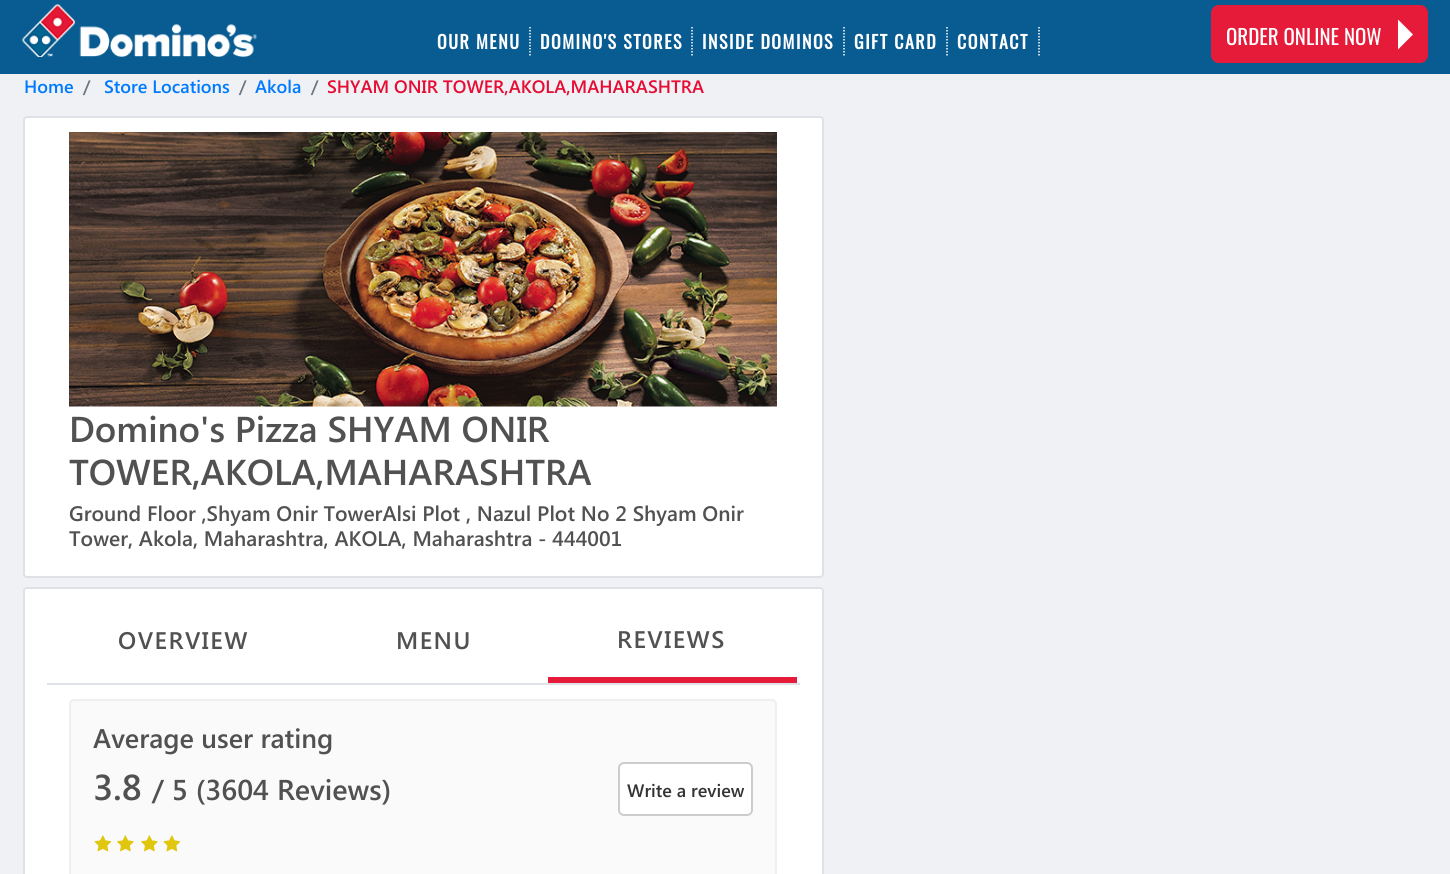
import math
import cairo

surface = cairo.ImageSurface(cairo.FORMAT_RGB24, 1450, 874)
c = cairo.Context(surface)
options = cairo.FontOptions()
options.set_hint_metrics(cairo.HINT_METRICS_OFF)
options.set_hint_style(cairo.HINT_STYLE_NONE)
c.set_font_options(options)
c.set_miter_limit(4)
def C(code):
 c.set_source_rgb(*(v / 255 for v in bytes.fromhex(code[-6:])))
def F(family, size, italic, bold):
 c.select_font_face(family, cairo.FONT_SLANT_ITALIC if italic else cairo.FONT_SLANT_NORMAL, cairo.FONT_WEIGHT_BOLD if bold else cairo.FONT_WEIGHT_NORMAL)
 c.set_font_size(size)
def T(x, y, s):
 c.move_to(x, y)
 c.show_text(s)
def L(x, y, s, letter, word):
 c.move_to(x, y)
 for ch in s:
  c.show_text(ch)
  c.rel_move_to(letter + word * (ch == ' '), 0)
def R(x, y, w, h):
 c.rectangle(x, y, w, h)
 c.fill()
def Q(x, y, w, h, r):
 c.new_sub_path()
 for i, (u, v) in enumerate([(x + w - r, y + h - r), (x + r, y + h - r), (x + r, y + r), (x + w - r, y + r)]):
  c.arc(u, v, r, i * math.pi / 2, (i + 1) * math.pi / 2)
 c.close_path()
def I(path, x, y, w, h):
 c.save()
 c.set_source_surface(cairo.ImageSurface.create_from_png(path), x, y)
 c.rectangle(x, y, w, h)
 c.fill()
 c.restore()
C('eff1f4')
c.paint()
C('095c91')
R(0,0,1450,74)
I('1.png',22,4,235,53)
c.new_path()
c.move_to(530,27)
c.line_to(530,57)
C('ffffff')
c.set_line_width(1.5)
c.set_dash([1.5,1.5])
c.stroke()
F('Oswald',18,0,1)
L(437,49,'OUR MENU',1.5,0)
c.new_path()
c.move_to(692,27)
c.line_to(692,57)
c.stroke()
L(540,49,'DOMINO\'S STORES',1.5,0)
c.new_path()
c.move_to(844,27)
c.line_to(844,57)
c.stroke()
L(702,49,'INSIDE DOMINOS',1.5,0)
c.new_path()
c.move_to(947,27)
c.line_to(947,57)
c.stroke()
L(854,49,'GIFT CARD',1.5,0)
c.new_path()
c.move_to(1039,27)
c.line_to(1039,57)
c.stroke()
L(957,49,'CONTACT',1.5,0)
C('e61a39')
Q(1211,5,217,58,8)
c.fill()
F('Oswald',21,0,0)
C('ffffff')
T(1226,45,'ORDER ONLINE NOW')
c.new_path()
c.move_to(1398,49.5)
c.line_to(1398,19.5)
c.line_to(1413,34.5)
c.close_path()
c.fill()
F('Segoe UI SemiBold',18,0,0)
C('007bff')
T(24,93,'Home')
C('6c757d')
T(83,93,'/')
C('007bff')
T(104,93,'Store Locations')
C('6c757d')
T(239,93,'/')
C('007bff')
T(255,93,'Akola')
C('6c757d')
T(311,93,'/')
C('e60c34')
T(327,93,'SHYAM ONIR TOWER,AKOLA,MAHARASHTRA')
C('ffffff')
Q(24,117,799,460,3)
c.fill_preserve()
C('dee2e6')
c.set_line_width(2)
c.set_dash([])
c.stroke()
I('2.png',69,132,708,275)
F('Segoe UI SemiBold',36,0,0)
C('515151')
T(69,442,'Domino\'s Pizza SHYAM ONIR')
T(69,485,'TOWER,AKOLA,MAHARASHTRA')
F('Segoe UI SemiBold',21,0,0)
T(69,521,'Ground Floor ,Shyam Onir TowerAlsi Plot , Nazul Plot No 2 Shyam Onir')
T(69,546,'Tower, Akola, Maharashtra, AKOLA, Maharashtra - 444001')
C('ffffff')
Q(24,588,799,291,3)
c.fill_preserve()
C('dee2e6')
c.stroke()
R(47,683,753,2)
F('Segoe UI SemiBold',24,0,0)
C('515151')
L(118,649,'OVERVIEW',1.5,0)
L(396,649,'MENU',1.5,0)
C('e61a39')
R(548,677,249,6)
C('515151')
L(617,648,'REVIEWS',1.5,0)
C('fafafa')
Q(70,700,706,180,4)
c.fill_preserve()
C('efefef')
c.stroke()
F('Segoe UI SemiBold',27,0,0)
C('515151')
T(93,748,'Average user rating')
F('Segoe UI SemiBold',36,0,0)
T(93,800,'3.8')
F('Segoe UI SemiBold',28.75,0,0)
T(152,800,'/ 5 (3604 Reviews)')
C('ffffff')
Q(619,763,133,52,5)
c.fill_preserve()
C('cccccc')
c.stroke()
F('Segoe UI SemiBold',18,0,0)
C('333333')
T(627,797,'Write a review')
I('3.png',94,835,18,17)
I('4.png',117,835,17,17)
I('4.png',141,835,17,17)
I('3.png',163,835,18,17)
surface.write_to_png('o.png')
